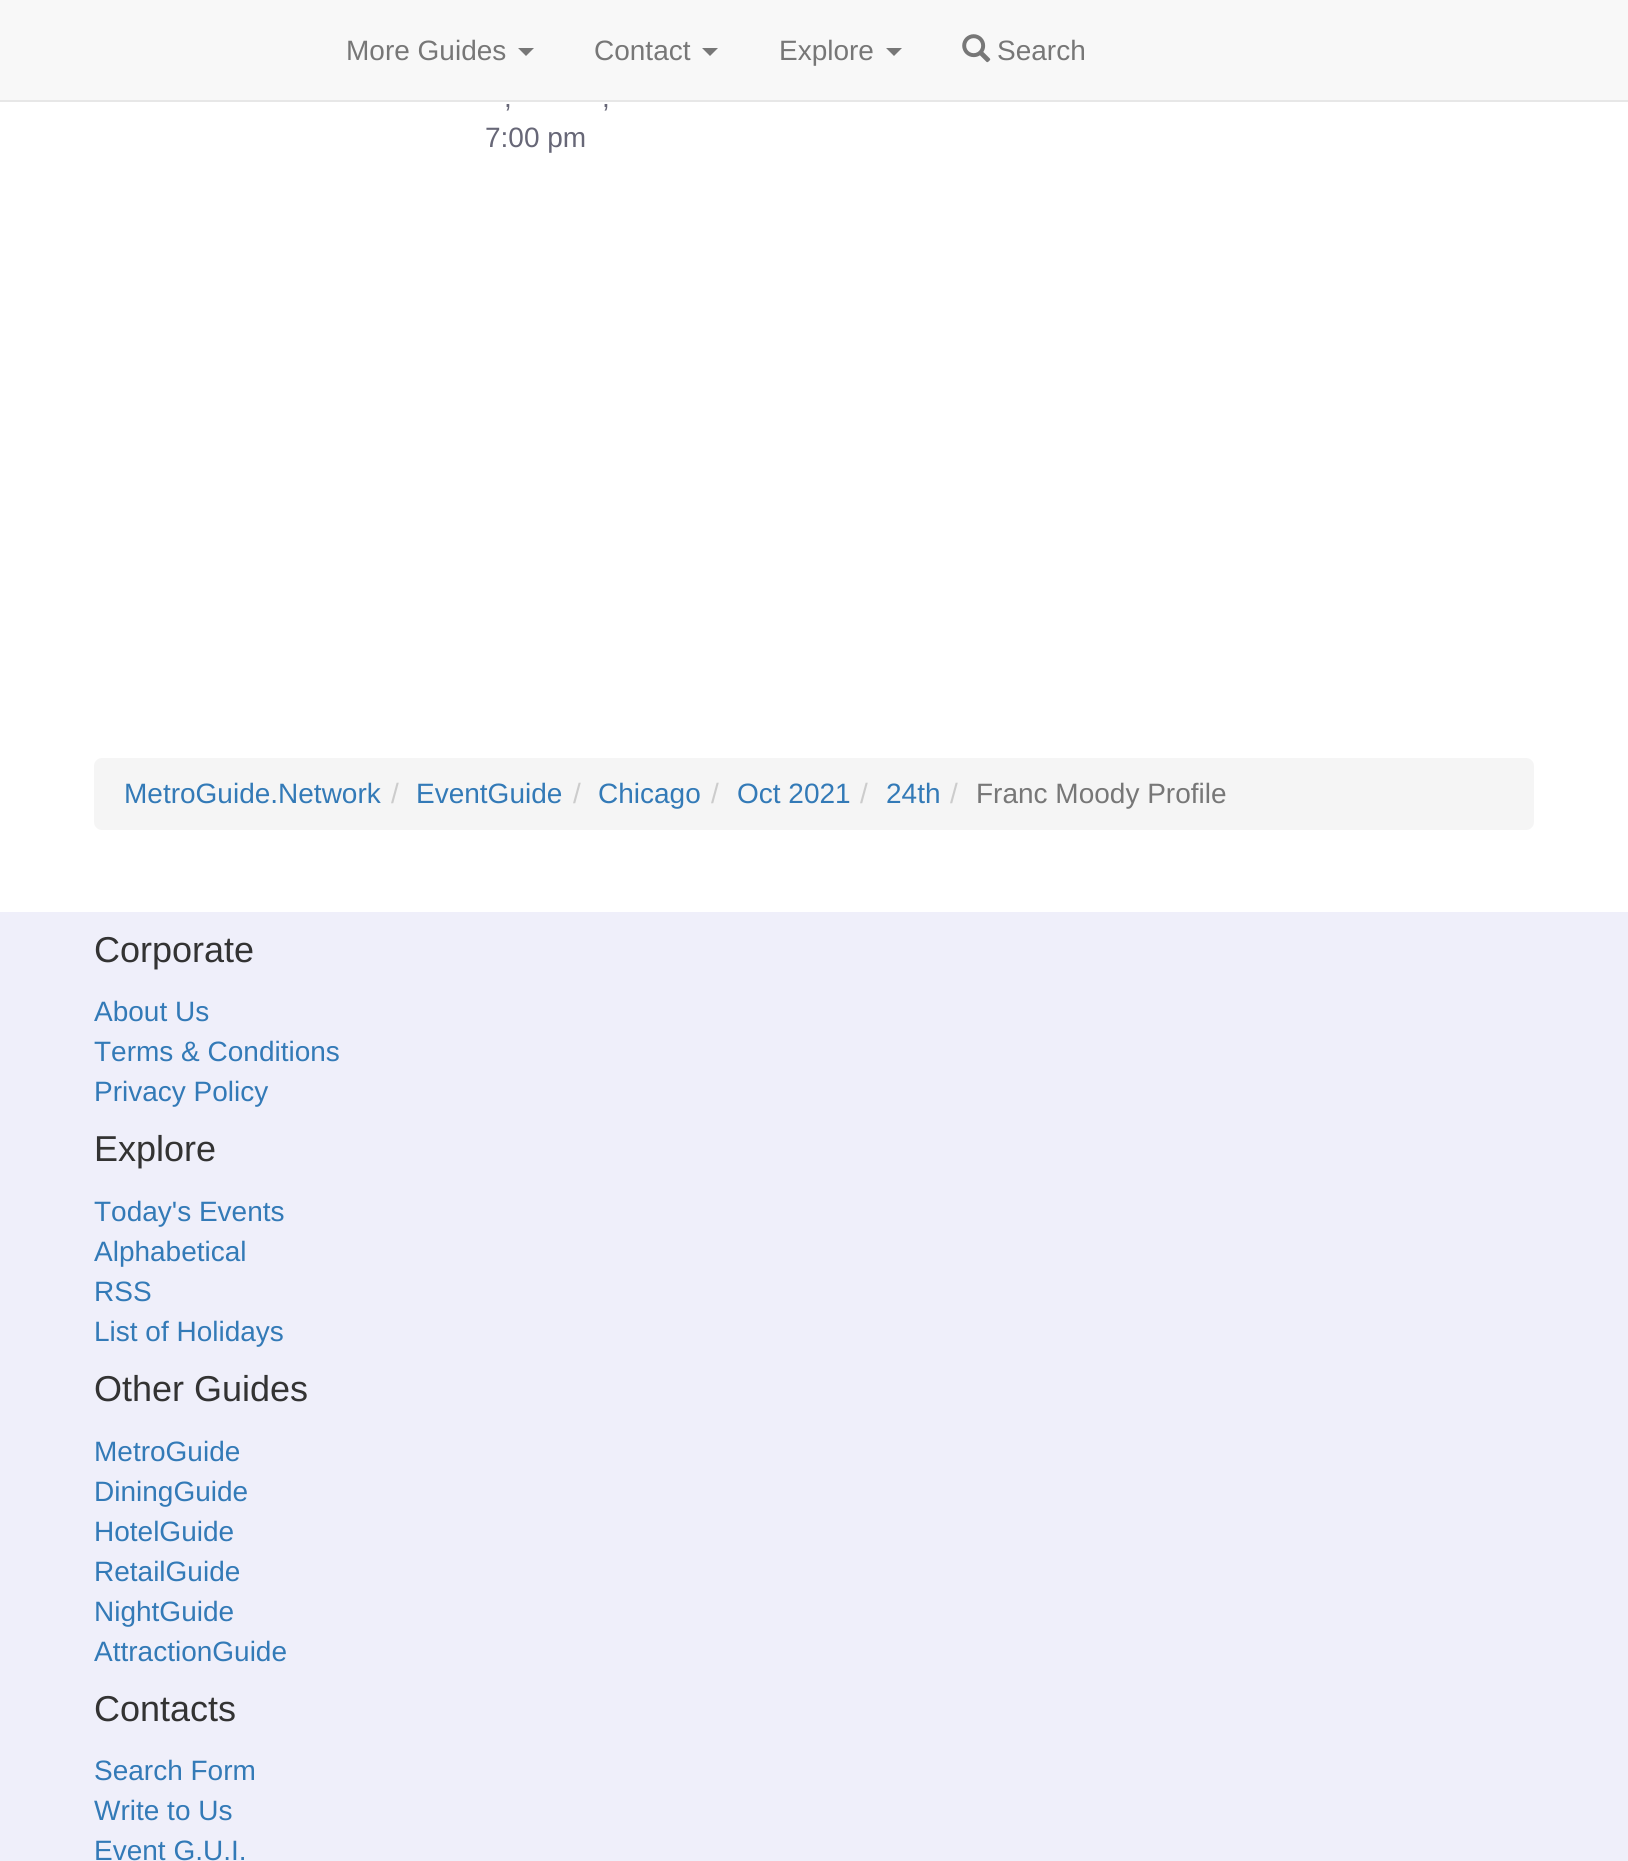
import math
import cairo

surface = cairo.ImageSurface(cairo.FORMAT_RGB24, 1628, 1861)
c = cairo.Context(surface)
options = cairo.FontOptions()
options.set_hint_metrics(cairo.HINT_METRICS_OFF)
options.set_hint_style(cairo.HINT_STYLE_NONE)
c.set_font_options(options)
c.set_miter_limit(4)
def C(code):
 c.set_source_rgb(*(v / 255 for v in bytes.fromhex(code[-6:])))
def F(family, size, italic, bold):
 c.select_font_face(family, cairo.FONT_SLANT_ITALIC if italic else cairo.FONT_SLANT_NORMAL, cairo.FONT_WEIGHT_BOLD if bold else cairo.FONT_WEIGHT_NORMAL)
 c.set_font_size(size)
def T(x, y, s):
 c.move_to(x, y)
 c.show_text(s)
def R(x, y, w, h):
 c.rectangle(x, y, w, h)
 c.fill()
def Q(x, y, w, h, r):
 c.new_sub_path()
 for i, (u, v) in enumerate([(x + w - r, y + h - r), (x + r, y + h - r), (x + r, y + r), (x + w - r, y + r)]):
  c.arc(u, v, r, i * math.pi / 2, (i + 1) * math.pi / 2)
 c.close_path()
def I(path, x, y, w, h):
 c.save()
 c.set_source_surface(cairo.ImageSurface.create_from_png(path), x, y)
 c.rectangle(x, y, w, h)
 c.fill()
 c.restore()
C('ffffff')
c.paint()
C('f8f8f8')
R(0,0,1628,100)
C('e7e7e7')
R(0,100,1628,2)
F('Liberation Sans',28,0,0)
C('777777')
T(346,60,'More Guides')
c.new_path()
c.move_to(518,48)
c.line_to(534,48)
c.line_to(526,56)
c.close_path()
c.fill()
T(594,60,'Contact')
c.new_path()
c.move_to(702,48)
c.line_to(718,48)
c.line_to(710,56)
c.close_path()
c.fill()
T(779,60,'Explore')
c.new_path()
c.move_to(886,48)
c.line_to(902,48)
c.line_to(894,56)
c.close_path()
c.fill()
I('1.png',962,34,29,29)
T(997,60,'Search')
C('676777')
T(504,107,',')
T(602,107,',')
T(485,147,'7:00 pm')
C('f5f5f5')
Q(94,758,1440,72,8)
c.fill()
C('337ab7')
T(124,803,'MetroGuide.Network')
C('cccccc')
T(391,803,'/')
C('337ab7')
T(416,803,'EventGuide')
C('cccccc')
T(573,803,'/')
C('337ab7')
T(598,803,'Chicago')
C('cccccc')
T(711,803,'/')
C('337ab7')
T(737,803,'Oct 2021')
C('cccccc')
T(860,803,'/')
C('337ab7')
T(886,803,'24th')
C('cccccc')
T(950,803,'/')
C('777777')
T(976,803,'Franc Moody Profile')
C('efeffa')
R(0,912,1628,949)
F('Liberation Sans',36,0,0)
C('333333')
T(94,962,'Corporate')
F('Liberation Sans',28,0,0)
C('337ab7')
T(94,1021,'About Us')
T(94,1061,'Terms & Conditions')
T(94,1101,'Privacy Policy')
F('Liberation Sans',36,0,0)
C('333333')
T(94,1161,'Explore')
F('Liberation Sans',28,0,0)
C('337ab7')
T(94,1221,'Today\'s Events')
T(94,1261,'Alphabetical')
T(94,1301,'RSS')
T(94,1341,'List of Holidays')
F('Liberation Sans',36,0,0)
C('333333')
T(94,1401,'Other Guides')
F('Liberation Sans',28,0,0)
C('337ab7')
T(94,1461,'MetroGuide')
T(94,1501,'DiningGuide')
T(94,1541,'HotelGuide')
T(94,1581,'RetailGuide')
T(94,1621,'NightGuide')
T(94,1661,'AttractionGuide')
F('Liberation Sans',36,0,0)
C('333333')
T(94,1721,'Contacts')
F('Liberation Sans',28,0,0)
C('337ab7')
T(94,1780,'Search Form')
T(94,1820,'Write to Us')
T(94,1860,'Event G.U.I.')
surface.write_to_png('o.png')
